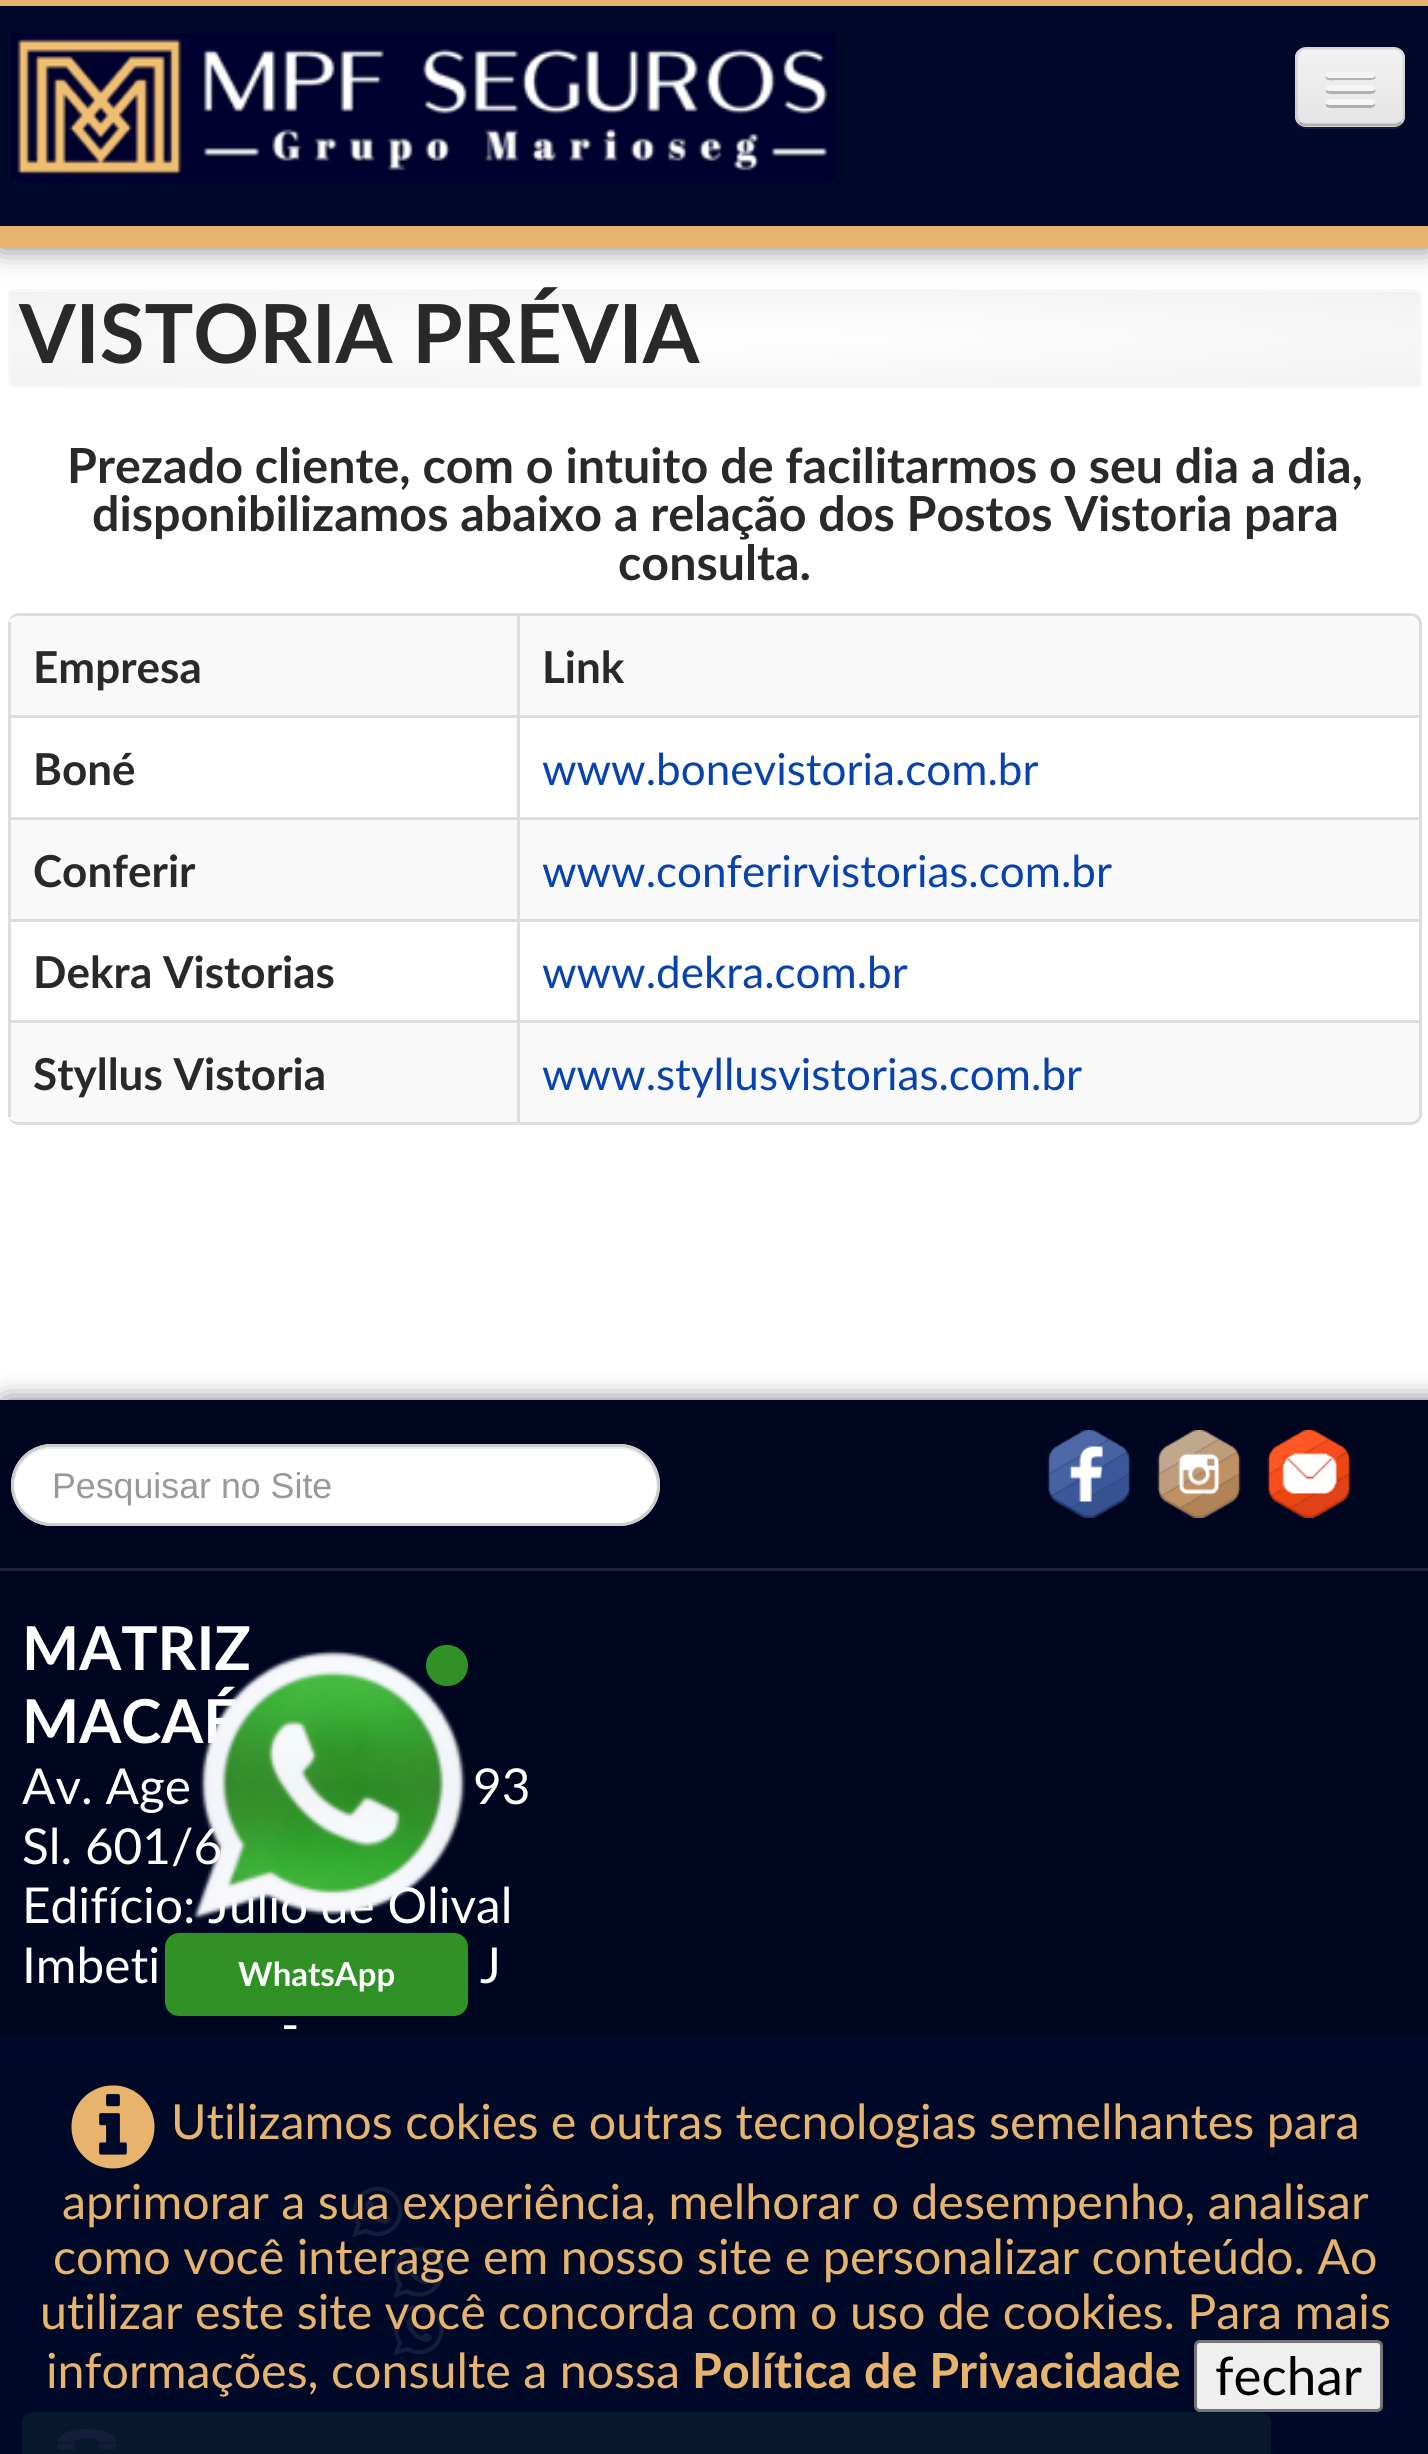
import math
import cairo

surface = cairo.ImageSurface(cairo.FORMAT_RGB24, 1428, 2454)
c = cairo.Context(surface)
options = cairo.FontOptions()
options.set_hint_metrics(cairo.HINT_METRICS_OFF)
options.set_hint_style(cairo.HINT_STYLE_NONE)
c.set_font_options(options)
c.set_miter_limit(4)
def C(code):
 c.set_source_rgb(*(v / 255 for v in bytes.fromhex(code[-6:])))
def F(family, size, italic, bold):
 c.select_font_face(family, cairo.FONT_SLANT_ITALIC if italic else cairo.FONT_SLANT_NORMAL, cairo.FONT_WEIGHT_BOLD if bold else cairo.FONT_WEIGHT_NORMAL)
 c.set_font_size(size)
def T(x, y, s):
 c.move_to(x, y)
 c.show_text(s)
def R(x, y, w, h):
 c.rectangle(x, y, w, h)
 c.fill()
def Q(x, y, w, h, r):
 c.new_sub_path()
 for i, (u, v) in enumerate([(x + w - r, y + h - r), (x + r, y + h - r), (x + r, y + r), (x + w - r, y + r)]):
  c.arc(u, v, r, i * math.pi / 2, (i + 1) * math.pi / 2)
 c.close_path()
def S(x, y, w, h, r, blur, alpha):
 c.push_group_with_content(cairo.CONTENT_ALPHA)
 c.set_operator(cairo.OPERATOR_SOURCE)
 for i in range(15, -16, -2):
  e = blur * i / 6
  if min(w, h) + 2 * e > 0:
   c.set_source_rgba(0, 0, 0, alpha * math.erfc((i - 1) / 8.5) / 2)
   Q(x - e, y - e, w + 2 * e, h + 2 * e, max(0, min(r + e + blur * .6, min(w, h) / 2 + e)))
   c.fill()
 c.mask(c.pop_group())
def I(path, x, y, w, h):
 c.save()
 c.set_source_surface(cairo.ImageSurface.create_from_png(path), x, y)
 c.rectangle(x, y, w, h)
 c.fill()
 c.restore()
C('ffffff')
c.paint()
C('000000')
S(0,0,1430,248,0,14,.5)
C('000929')
R(0,6,1428,220)
C('e8b36d')
R(0,0,1428,6)
R(0,226,1428,22)
I('1.png',11,33,825,149)
C('131b39')
c.new_path()
c.move_to(1295,59)
c.line_to(1295,118)
c.curve_to(1295,124,1300,129,1306,129)
c.line_to(1394,129)
c.curve_to(1400,129,1405,124,1405,118)
c.curve_to(1404,123,1400,126,1394,126)
c.line_to(1306,126)
c.curve_to(1300,126,1295,122,1295,116)
c.close_path()
c.fill()
C('ededed')
Q(1295,47,110,80,11)
c.fill()
c.save()
Q(1295,47,110,80,11)
c.clip()
gradient = cairo.LinearGradient(1350,50,1350,124)
gradient.add_color_stop_rgba(0,0.949,0.949,0.949,1)
gradient.add_color_stop_rgba(1,0.898,0.898,0.898,1)
c.set_source(gradient)
R(1295,50,110,74)
c.restore()
c.new_path()
c.move_to(1401,122.5)
c.curve_to(1399.5,124,1397,125,1394,125)
c.line_to(1306,125)
c.curve_to(1303.5,125,1301,124,1299.5,122.5)
c.set_source_rgba(0,0,0,0.25)
c.set_line_width(2.8)
c.stroke()
c.new_path()
c.move_to(1299.5,122.5)
c.curve_to(1297.5,120.5,1296.5,118,1296.5,115.5)
c.line_to(1296.5,58)
c.curve_to(1296.5,55,1297.5,52.5,1299.5,51)
c.curve_to(1301,49,1303.5,48,1306,48)
c.line_to(1394,48)
c.curve_to(1397,48,1399.5,49,1401,51)
c.curve_to(1403,52.5,1404,55,1404,58)
c.line_to(1404,115.5)
c.curve_to(1404,118,1403,120.5,1401,122.5)
c.set_source_rgba(0,0,0,0.1)
c.stroke()
C('b2b2b2')
c.new_path()
c.move_to(1326,76)
c.curve_to(1324,82,1335,80,1336,80)
c.line_to(1365,80)
c.curve_to(1366,80,1378,81,1375,76)
c.line_to(1373,77)
c.line_to(1328,77)
c.close_path()
c.fill()
C('f5f5f5')
Q(1326,72,49,6,3)
c.fill()
C('b0b0b0')
c.new_path()
c.move_to(1326,90)
c.curve_to(1324,95,1335,94,1336,94)
c.line_to(1365,94)
c.curve_to(1366,94,1378,95,1375,89)
c.line_to(1373,91)
c.line_to(1328,91)
c.close_path()
c.fill()
C('f5f5f5')
Q(1326,85,49,6,3)
c.fill()
C('aeaeae')
c.new_path()
c.move_to(1326,104)
c.curve_to(1324,109,1335,108,1336,108)
c.line_to(1365,108)
c.curve_to(1365,108,1379,109,1374,103)
c.line_to(1373,104)
c.line_to(1328,104)
c.close_path()
c.fill()
C('f5f5f5')
Q(1326,99,49,6,3)
c.fill()
gradient = cairo.RadialGradient(0,0,0,0,0,1)
gradient.set_matrix(cairo.Matrix(1 / 996, 0, 0, 1 / 66, -1 * 715 / 996, -1 * 338 / 66))
gradient.add_color_stop_rgba(0,1,1,1,1)
gradient.add_color_stop_rgba(1,0.949,0.949,0.949,1)
c.set_source(gradient)
R(11,292,1408,93)
Q(9.5,290.5,1411,96,4.5)
C('f7f7f7')
c.set_line_width(3)
c.stroke()
F('Lato',81.5,0,1)
C('292929')
T(19,363,'VISTORIA PRÉVIA')
F('Lato',48.4,0,1)
T(67,483,'Prezado cliente, com o intuito de facilitarmos o seu dia a dia,')
T(92,531,'disponibilizamos abaixo a relação dos Postos Vistoria para')
T(618,580,'consulta.')
C('dddddd')
c.set_fill_rule(cairo.FILL_RULE_EVEN_ODD)
c.new_path()
c.move_to(19,613)
c.line_to(1411,613)
c.curve_to(1417,613,1422,618,1422,624)
c.line_to(1422,1114)
c.curve_to(1422,1120,1417,1125,1411,1125)
c.line_to(19,1125)
c.curve_to(13,1125,8,1120,8,1114)
c.line_to(8,624)
c.curve_to(8,618,13,613,19,613)
c.close_path()
c.move_to(19,616)
c.line_to(1411,616)
c.curve_to(1415,616,1419,620,1419,624)
c.line_to(1419,1114)
c.curve_to(1419,1118,1415,1122,1411,1122)
c.line_to(19,1122)
c.curve_to(13,1122,8,1118,8,1114)
c.line_to(8,624)
c.curve_to(8,620,13,616,19,616)
c.close_path()
c.fill()
C('f9f9f9')
c.new_path()
c.move_to(19,616)
c.line_to(517,616)
c.line_to(517,715)
c.line_to(8,715)
c.line_to(8,627)
c.curve_to(8,621,13,616,19,616)
c.close_path()
c.fill()
C('dddddd')
R(8,622,3,93)
F('Lato',44,0,1)
C('292929')
T(33,683,'Empresa')
C('f9f9f9')
c.new_path()
c.move_to(517,616)
c.line_to(1408,616)
c.curve_to(1414,616,1419,621,1419,627)
c.line_to(1419,715)
c.line_to(517,715)
c.close_path()
c.fill()
C('dddddd')
R(517,616,3,99)
C('292929')
T(542,683,'Link')
C('dddddd')
R(8,715,1411,3)
R(8,715,3,102)
C('292929')
T(33,785,'Boné')
C('dddddd')
R(517,715,3,102)
F('Lato',44,0,0)
C('0742b0')
T(542,785,'www.bonevistoria.com.br')
C('f9f9f9')
R(11,820,506,99)
C('dddddd')
R(8,817,1411,3)
R(8,817,3,102)
F('Lato',44,0,1)
C('292929')
T(33,887,'Conferir')
C('f9f9f9')
R(520,820,899,99)
C('dddddd')
R(517,817,3,102)
F('Lato',44,0,0)
C('0742b0')
T(542,887,'www.conferirvistorias.com.br')
C('dddddd')
R(8,919,1411,3)
R(8,919,3,101)
F('Lato',44,0,1)
C('292929')
T(33,988,'Dekra Vistorias')
C('dddddd')
R(517,919,3,101)
F('Lato',44,0,0)
C('0742b0')
T(542,988,'www.dekra.com.br')
C('f9f9f9')
c.new_path()
c.move_to(8,1020)
c.line_to(517,1020)
c.line_to(517,1122)
c.line_to(19,1122)
c.curve_to(13,1122,8,1117,8,1111)
c.close_path()
c.fill()
C('dddddd')
R(8,1020,509,3)
R(8,1020,3,97)
F('Lato',44,0,1)
C('292929')
T(33,1090,'Styllus Vistoria')
C('f9f9f9')
c.new_path()
c.move_to(517,1020)
c.line_to(1419,1020)
c.line_to(1419,1111)
c.curve_to(1419,1117,1414,1122,1408,1122)
c.line_to(517,1122)
c.close_path()
c.fill()
C('dddddd')
R(517,1020,902,3)
R(517,1020,3,102)
F('Lato',44,0,0)
C('0742b0')
T(542,1090,'www.styllusvistorias.com.br')
C('000000')
S(6,1405,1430,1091,0,14,.75)
gradient = cairo.LinearGradient(715,1400,715,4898)
gradient.add_color_stop_rgba(0,0,0.024,0.122,1)
gradient.add_color_stop_rgba(1,0,0.035,0.161,1)
c.set_source(gradient)
R(0,1400,1428,1054)
C('ffffff')
Q(11,1444,649,82,41)
c.fill()
C('ececec')
c.set_fill_rule(cairo.FILL_RULE_WINDING)
c.new_path()
c.move_to(52,1449)
c.line_to(619,1449)
c.curve_to(640,1449,656,1465,657,1487)
c.curve_to(658,1465,640,1447,618,1447)
c.line_to(52,1447)
c.curve_to(31,1447,13,1465,14,1487)
c.curve_to(15,1465,31,1449,52,1449)
c.close_path()
c.fill()
Q(12.5,1445.5,646,79,39.5)
C('cccccc')
c.stroke()
F('Liberation Sans',35.75,0,0)
C('999999')
T(52,1498,'Pesquisar no Site')
I('2.png',1047,1430,84,88)
I('3.png',1157,1430,84,88)
I('4.png',1267,1430,84,88)
C('20253b')
R(0,1568,1428,3)
F('Lato',60.5,0,1)
C('ffffff')
T(22,1670,'MATRIZ')
T(22,1743,'MACAÉ')
F('Lato',49.5,0,0)
T(22,1804,'Av. Age')
T(473,1804,'93')
T(22,1864,'Sl. 601/6')
T(22,1923,'Edifício: Julio de Olival')
T(22,1983,'Imbeti')
T(480,1983,'J')
T(281,2042,'-')
I('5.png',352,2186,51,52)
I('6.png',393,2247,51,51)
I('7.png',393,2304,51,52)
C('5bb75b')
Q(22,2412,1249,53,11)
c.fill()
c.save()
Q(22,2412,1249,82,11)
c.clip()
gradient = cairo.LinearGradient(646,2415,646,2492)
gradient.add_color_stop_rgba(0,0.384,0.769,0.384,1)
gradient.add_color_stop_rgba(1,0.318,0.639,0.318,1)
c.set_source(gradient)
R(22,2415,1249,39)
c.restore()
c.set_source_rgba(1,1,1,0.2)
c.new_path()
c.move_to(33,2417)
c.line_to(1260,2417)
c.curve_to(1264,2417,1268,2421,1268,2426)
c.line_to(1268,2423)
c.curve_to(1268,2419,1264,2415,1260,2415)
c.line_to(33,2415)
c.curve_to(29,2415,25,2419,25,2423)
c.line_to(25,2426)
c.curve_to(25,2421,28,2417,33,2417)
c.close_path()
c.fill()
c.new_path()
c.move_to(26,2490)
c.curve_to(24.5,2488.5,23.5,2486,23.5,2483)
c.line_to(23.5,2423)
c.curve_to(23.5,2420,24.5,2417.5,26,2416)
c.curve_to(28,2414,30.5,2413,33,2413)
c.line_to(1259.5,2413)
c.curve_to(1262,2413,1264.5,2414,1266.5,2416)
c.curve_to(1268,2417.5,1269,2420,1269,2423)
c.line_to(1269,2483)
c.curve_to(1269,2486,1268,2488.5,1266.5,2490)
c.set_source_rgba(0,0,0,0.1)
c.set_line_width(2.8)
c.stroke()
I('8.png',57,2428,60,22)
I('9.png',192,1649,274,271)
C('2f9126')
Q(426,1645,42,41,20.5)
c.fill()
Q(165,1933,303,83,14)
c.fill()
F('Lato',33,0,1)
C('ffffff')
T(238,1986,'WhatsApp')
c.set_source_rgba(0,0.039,0.161,0.92)
R(0,2035,1428,419)
I('10.png',71,2085,84,84)
F('Lato',48.4,0,0)
C('e7b36d')
T(171,2139,'Utilizamos cokies e outras tecnologias semelhantes para')
T(62,2219,'aprimorar a sua experiência, melhorar o desempenho, analisar')
T(53,2274,'como você interage em nosso site e personalizar conteúdo. Ao')
T(40,2329,'utilizar este site você concorda com o uso de cookies. Para mais')
T(46,2388,'informações, consulte a nossa')
F('Lato',48.4,0,1)
T(692,2388,'Política de Privacidade')
C('efefef')
Q(1195.5,2341.5,186,69,4.5)
c.fill_preserve()
C('767676')
c.set_line_width(3)
c.stroke()
F('Lato',53,0,0)
C('000000')
T(1215,2395,'fechar')
surface.write_to_png('o.png')
